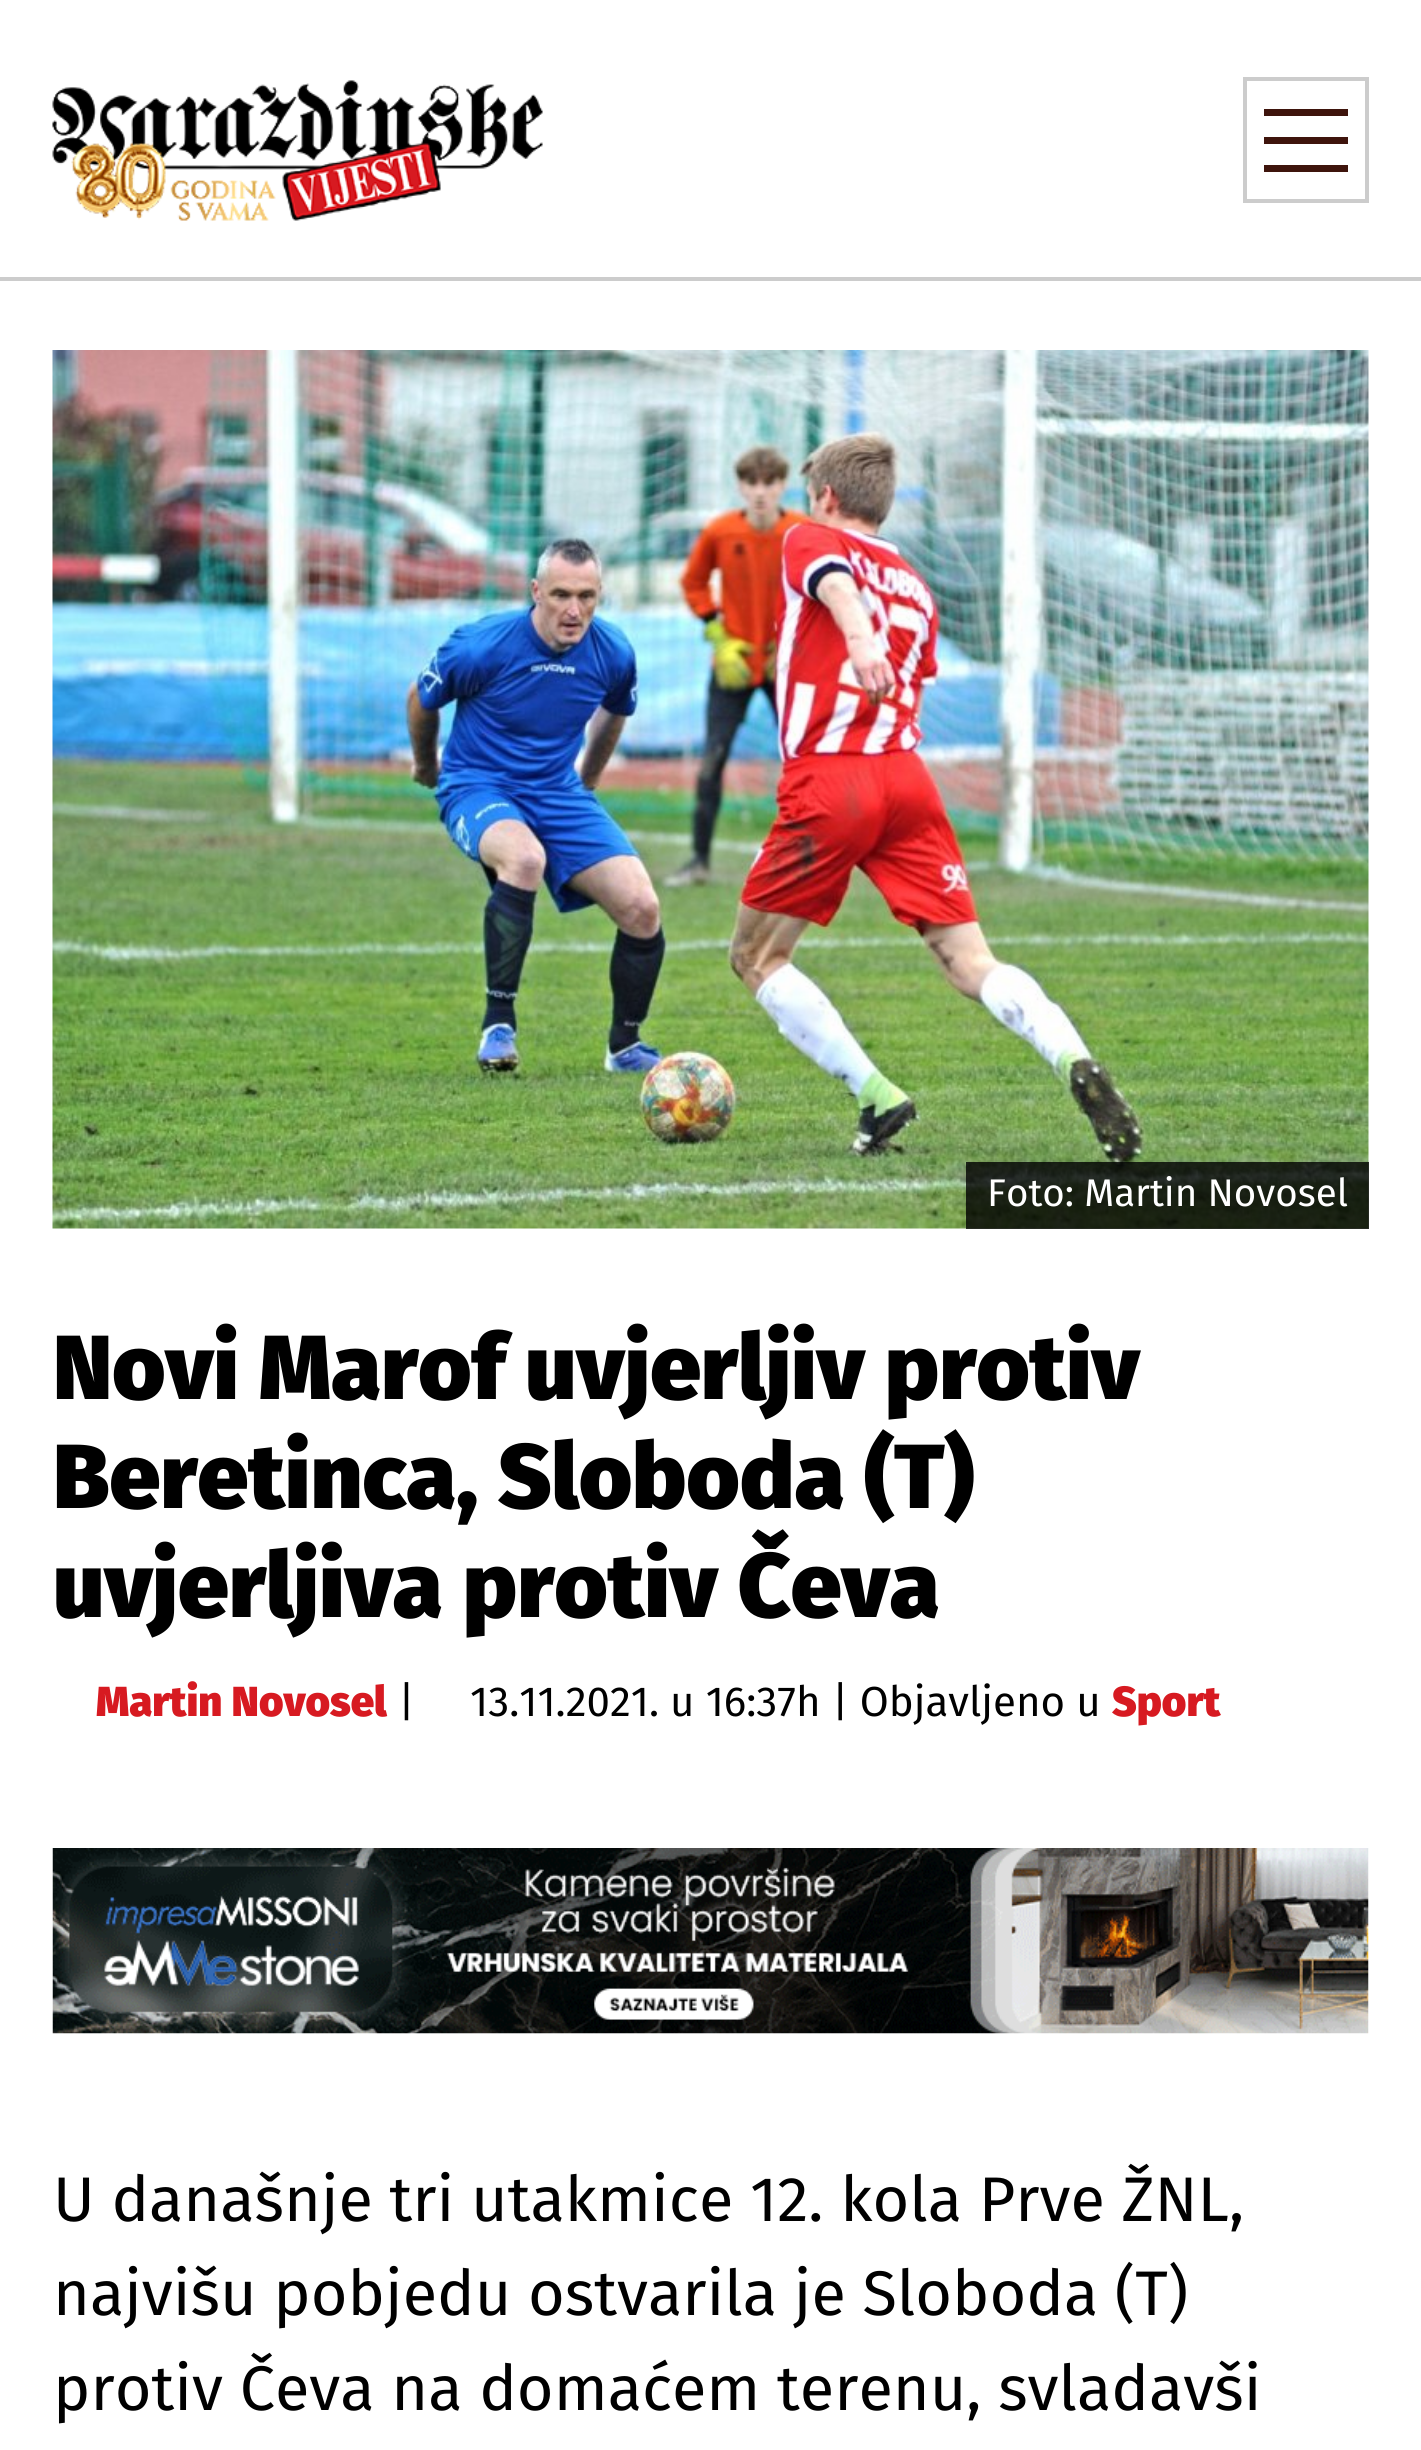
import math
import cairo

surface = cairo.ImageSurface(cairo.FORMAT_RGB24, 1421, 2450)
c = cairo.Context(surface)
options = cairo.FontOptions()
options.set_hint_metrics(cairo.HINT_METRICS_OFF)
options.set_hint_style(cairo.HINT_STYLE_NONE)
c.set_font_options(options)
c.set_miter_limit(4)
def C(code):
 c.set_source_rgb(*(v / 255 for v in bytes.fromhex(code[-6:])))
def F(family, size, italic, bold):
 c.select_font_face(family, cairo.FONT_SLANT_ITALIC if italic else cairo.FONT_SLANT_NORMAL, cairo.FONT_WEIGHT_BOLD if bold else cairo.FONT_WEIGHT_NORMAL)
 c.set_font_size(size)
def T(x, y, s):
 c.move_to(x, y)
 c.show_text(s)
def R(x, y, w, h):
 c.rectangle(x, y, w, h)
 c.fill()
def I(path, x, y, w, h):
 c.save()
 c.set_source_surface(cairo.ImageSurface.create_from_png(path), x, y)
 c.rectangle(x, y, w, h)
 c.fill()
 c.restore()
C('ffffff')
c.paint()
C('cccccc')
R(0,277,1421,4)
I('1.png',52,80,491,141)
c.rectangle(1245,79,122,122)
c.set_line_width(4)
c.stroke()
C('3e140c')
R(1264,109,84,7)
R(1264,137,84,7)
R(1264,165,84,7)
I('2.png',52,350,1317,879)
c.set_source_rgba(0,0,0,0.8)
R(966,1162,403,67)
F('Fira Sans',38.5,0,0)
C('ffffff')
T(987,1206,'Foto: Martin Novosel')
F('Fira Sans Black',91,0,0)
C('000000')
T(53,1399,'Novi Marof uvjerljiv protiv')
T(53,1508,'Beretinca, Sloboda (T)')
T(53,1617,'uvjerljiva protiv Čeva')
F('Fira Sans Black',42,0,0)
C('d71a21')
T(96,1716,'Martin Novosel')
F('Fira Sans',42,0,0)
C('000000')
T(398,1716,'|')
T(470,1716,'13.11.2021. u 16:37h | Objavljeno u')
F('Fira Sans Black',42,0,0)
C('d71a21')
T(1112,1716,'Sport')
I('3.png',52,1848,1317,186)
F('Fira Sans',63,0,0)
C('000000')
T(53,2221,'U današnje tri utakmice 12. kola Prve ŽNL,')
T(53,2315,'najvišu pobjedu ostvarila je Sloboda (T)')
T(53,2410,'protiv Čeva na domaćem terenu, svladavši')
surface.write_to_png('o.png')
